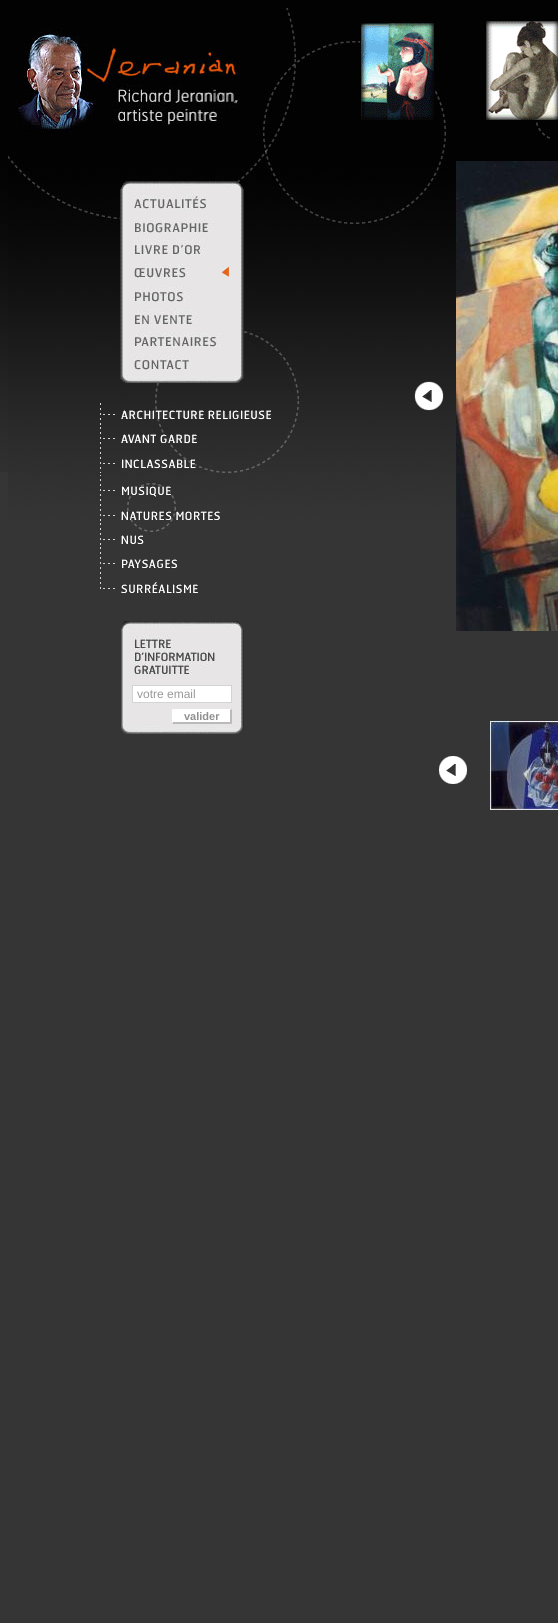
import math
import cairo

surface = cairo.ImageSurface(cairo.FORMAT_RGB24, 558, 1623)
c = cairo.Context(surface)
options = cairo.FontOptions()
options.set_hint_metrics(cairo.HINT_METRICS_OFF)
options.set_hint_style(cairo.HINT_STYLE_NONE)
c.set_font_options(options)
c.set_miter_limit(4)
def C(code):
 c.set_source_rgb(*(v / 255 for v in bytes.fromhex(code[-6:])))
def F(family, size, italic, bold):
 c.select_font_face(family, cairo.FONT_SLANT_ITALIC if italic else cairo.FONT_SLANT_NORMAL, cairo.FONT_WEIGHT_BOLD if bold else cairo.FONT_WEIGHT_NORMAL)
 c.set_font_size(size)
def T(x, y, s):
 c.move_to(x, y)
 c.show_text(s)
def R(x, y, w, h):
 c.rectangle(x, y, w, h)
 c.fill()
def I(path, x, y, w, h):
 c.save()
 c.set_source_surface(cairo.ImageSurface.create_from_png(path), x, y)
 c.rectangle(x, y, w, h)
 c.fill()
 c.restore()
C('353535')
c.paint()
I('1.png',0,0,558,472)
I('2.png',8,8,542,528)
I('3.png',16,28,224,104)
I('4.png',360,21,198,100)
I('5.png',121,181,122,8)
I('6.png',120,189,124,190)
I('7.png',134,194,72,16)
I('8.png',134,217,80,16)
I('9.png',134,239,72,16)
I('10.png',222,265,7,12)
I('11.png',134,263,88,16)
I('12.png',134,286,56,16)
I('13.png',134,309,64,16)
I('14.png',134,332,88,16)
I('15.png',134,355,56,16)
I('16.png',121,375,122,8)
I('17.png',414,381,30,30)
I('18.png',456,161,102,470)
I('19.png',439,756,28,28)
I('20.png',490,721,68,89)
I('21.png',100,403,171,22)
I('22.png',100,427,97,22)
I('23.png',100,452,96,21)
I('24.png',100,475,71,22)
I('25.png',100,499,120,22)
I('26.png',100,523,44,22)
I('27.png',100,547,77,22)
I('28.png',100,572,98,21)
I('29.png',121,621,122,8)
I('30.png',121,629,123,101)
I('31.png',132,635,85,40)
C('ffffff')
c.rectangle(132.5,685.5,99,17)
c.fill_preserve()
C('d2d4d6')
c.set_line_width(1)
c.stroke()
F('Liberation Sans',12,0,0)
C('999999')
T(137,698,'votre email')
C('ffffff')
R(173,710,57,12)
c.new_path()
c.move_to(172,709)
c.line_to(232,709)
c.line_to(230,710)
c.line_to(173,710)
c.close_path()
c.fill()
C('bababa')
c.new_path()
c.move_to(232,709)
c.line_to(232,724)
c.line_to(230,722)
c.line_to(230,710)
c.close_path()
c.fill()
c.new_path()
c.move_to(232,724)
c.line_to(172,724)
c.line_to(173,722)
c.line_to(230,722)
c.close_path()
c.fill()
C('ffffff')
c.new_path()
c.move_to(172,724)
c.line_to(172,709)
c.line_to(173,710)
c.line_to(173,722)
c.close_path()
c.fill()
F('Liberation Sans',11,0,1)
C('909090')
T(184,720,'valider')
I('32.png',121,726,122,8)
surface.write_to_png('o.png')
